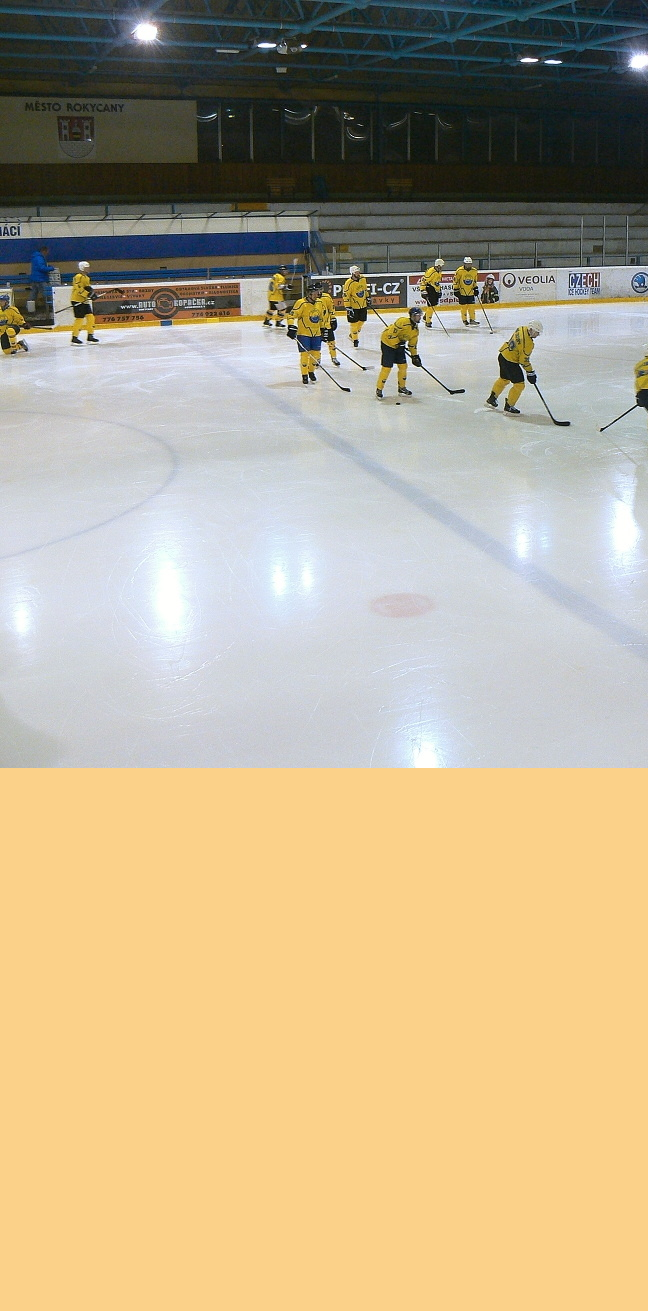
import math
import cairo

surface = cairo.ImageSurface(cairo.FORMAT_RGB24, 648, 1311)
c = cairo.Context(surface)
options = cairo.FontOptions()
options.set_hint_metrics(cairo.HINT_METRICS_OFF)
options.set_hint_style(cairo.HINT_STYLE_NONE)
c.set_font_options(options)
c.set_miter_limit(4)
def C(code):
 c.set_source_rgb(*(v / 255 for v in bytes.fromhex(code[-6:])))
def I(path, x, y, w, h):
 c.save()
 c.set_source_surface(cairo.ImageSurface.create_from_png(path), x, y)
 c.rectangle(x, y, w, h)
 c.fill()
 c.restore()
C('fbd189')
c.paint()
I('1.png',0,0,648,768)
surface.write_to_png('o.png')
